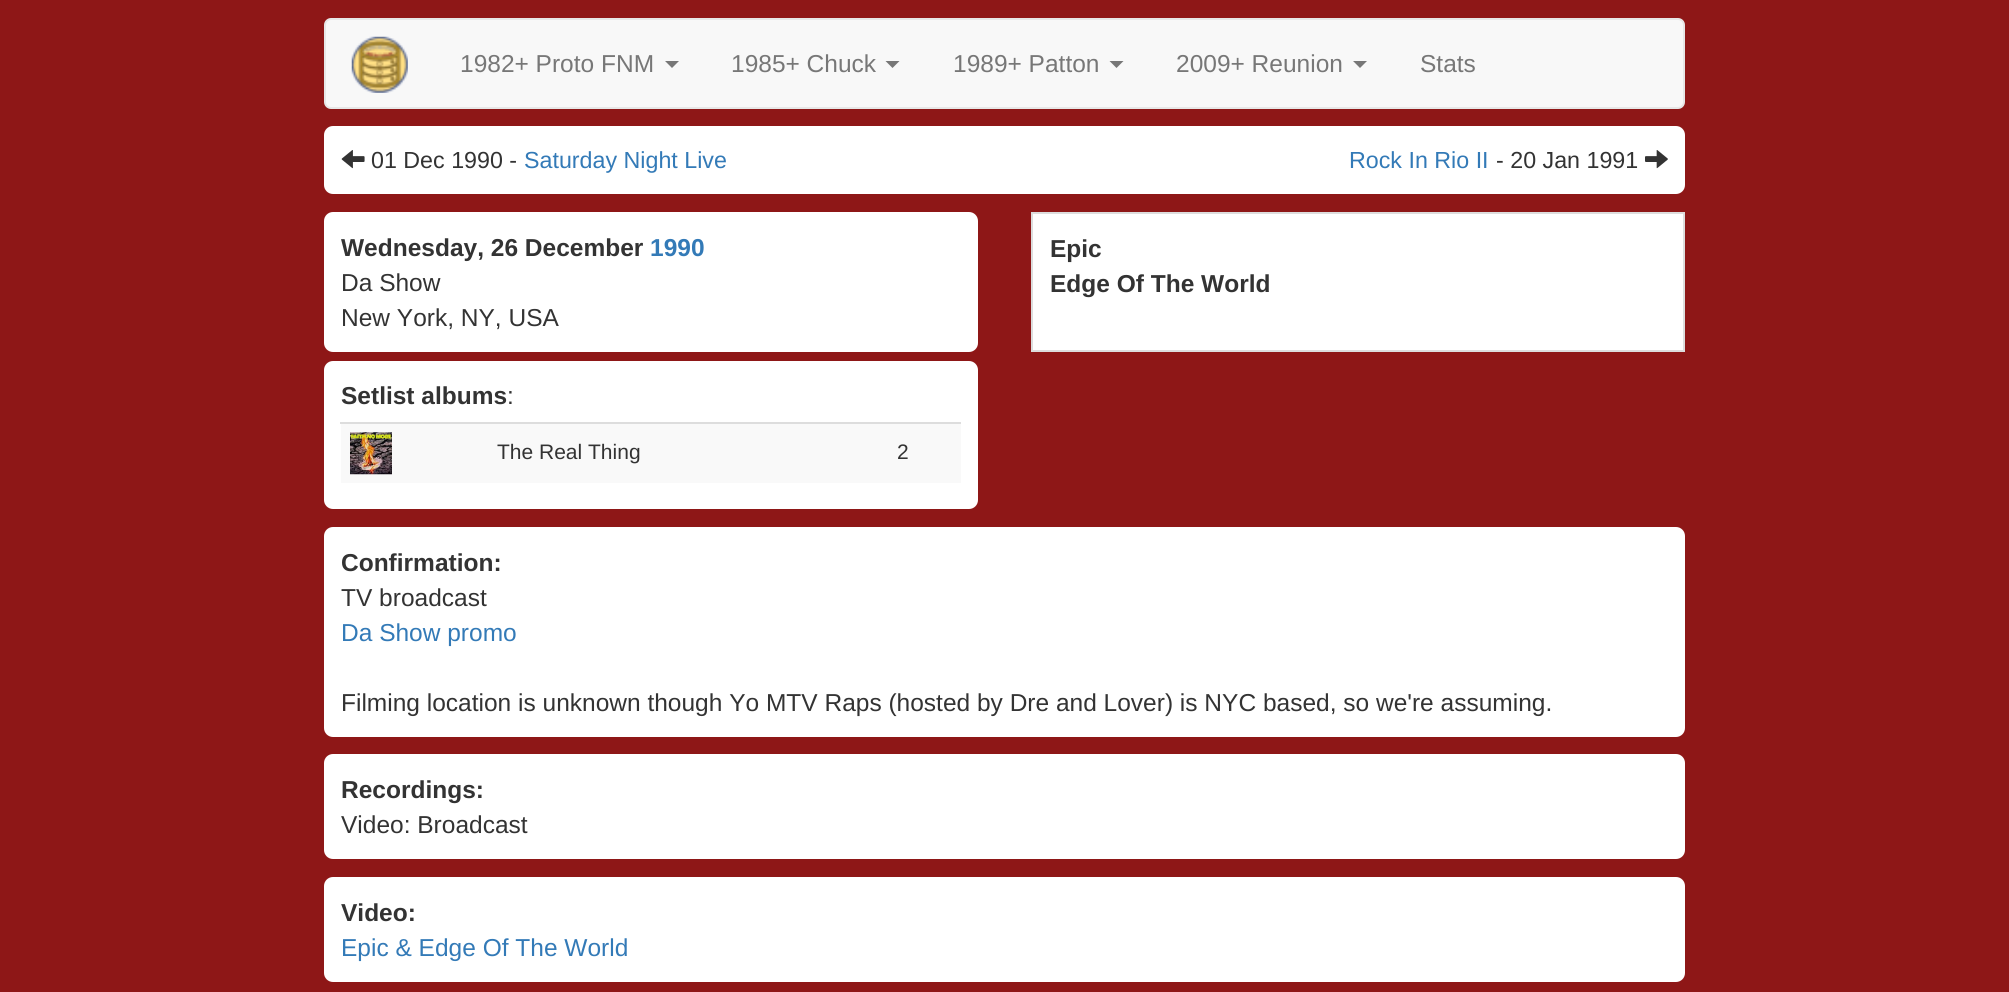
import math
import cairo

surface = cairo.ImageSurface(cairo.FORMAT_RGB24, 2009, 992)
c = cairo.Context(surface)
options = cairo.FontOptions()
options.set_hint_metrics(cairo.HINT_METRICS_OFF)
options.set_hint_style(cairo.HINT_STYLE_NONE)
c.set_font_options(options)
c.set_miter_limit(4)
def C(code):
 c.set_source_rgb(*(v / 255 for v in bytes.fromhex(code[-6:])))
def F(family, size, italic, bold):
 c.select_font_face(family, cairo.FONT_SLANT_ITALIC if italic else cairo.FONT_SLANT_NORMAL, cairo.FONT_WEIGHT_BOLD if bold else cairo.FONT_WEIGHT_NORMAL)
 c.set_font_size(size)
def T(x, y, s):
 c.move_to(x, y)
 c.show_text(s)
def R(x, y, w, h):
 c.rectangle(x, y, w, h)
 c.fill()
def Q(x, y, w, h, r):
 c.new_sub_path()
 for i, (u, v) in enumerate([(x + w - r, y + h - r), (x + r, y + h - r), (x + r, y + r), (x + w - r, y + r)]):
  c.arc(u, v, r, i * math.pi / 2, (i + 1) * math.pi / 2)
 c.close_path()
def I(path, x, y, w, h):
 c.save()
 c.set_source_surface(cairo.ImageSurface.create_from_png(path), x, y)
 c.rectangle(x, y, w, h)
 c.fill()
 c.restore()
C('8e1717')
c.paint()
C('f8f8f8')
Q(325,19,1359,89,6)
c.fill_preserve()
C('e7e7e7')
c.stroke()
I('1.png',351,36,57,57)
F('Liberation Sans',24.5,0,0)
C('777777')
T(460,72,'1982+ Proto FNM')
c.new_path()
c.move_to(665,61)
c.line_to(679,61)
c.line_to(672,68)
c.close_path()
c.fill()
T(731,72,'1985+ Chuck')
c.new_path()
c.move_to(885.5,61)
c.line_to(899.5,61)
c.line_to(892.5,68)
c.close_path()
c.fill()
T(953,72,'1989+ Patton')
c.new_path()
c.move_to(1109.5,61)
c.line_to(1123.5,61)
c.line_to(1116.5,68)
c.close_path()
c.fill()
T(1176,72,'2009+ Reunion')
c.new_path()
c.move_to(1353,61)
c.line_to(1367,61)
c.line_to(1360,68)
c.close_path()
c.fill()
T(1420,72,'Stats')
C('ffffff')
Q(324,126,1361,68,9)
c.fill()
I('2.png',341,150,24,19)
F('Liberation Sans',23.25,0,0)
C('333333')
T(371,168,'01 Dec 1990 -')
C('337ab7')
T(524,168,'Saturday Night Live')
T(1349,168,'Rock In Rio II')
C('333333')
T(1496,168,'- 20 Jan 1991')
I('3.png',1645,150,23,19)
C('ffffff')
Q(324,212,654,140,9)
c.fill()
F('Liberation Sans',24.5,0,1)
C('333333')
T(341,256,'Wednesday, 26 December')
C('337ab7')
T(650,256,'1990')
F('Liberation Sans',24.5,0,0)
C('333333')
T(341,291,'Da Show')
T(341,326,'New York, NY, USA')
C('ffffff')
Q(324,361,654,148,9)
c.fill()
F('Liberation Sans',24.5,0,1)
C('333333')
T(341,404,'Setlist albums')
F('Liberation Sans',24.5,0,0)
T(507,404,':')
C('f9f9f9')
R(341,424,620,59)
I('4.png',350,432,42,43)
F('Liberation Sans',21,0,0)
C('333333')
T(497,459,'The Real Thing')
C('dddddd')
R(340,422,621,2)
C('333333')
T(897,459,'2')
C('ffffff')
c.rectangle(1032,213,652,138)
c.fill_preserve()
C('dddddd')
c.stroke()
F('Liberation Sans',24.5,0,1)
C('333333')
T(1050,257,'Epic')
T(1050,292,'Edge Of The World')
C('ffffff')
Q(324,527,1361,210,9)
c.fill()
C('333333')
T(341,571,'Confirmation:')
F('Liberation Sans',24.5,0,0)
T(341,606,'TV broadcast')
C('337ab7')
T(341,641,'Da Show promo')
C('333333')
T(341,711,'Filming location is unknown though Yo MTV Raps (hosted by Dre and Lover) is NYC based, so we\'re assuming.')
C('ffffff')
Q(324,754,1361,105,9)
c.fill()
F('Liberation Sans',24.5,0,1)
C('333333')
T(341,798,'Recordings:')
F('Liberation Sans',24.5,0,0)
T(341,833,'Video: Broadcast')
C('ffffff')
Q(324,877,1361,105,9)
c.fill()
F('Liberation Sans',24.5,0,1)
C('333333')
T(341,921,'Video:')
F('Liberation Sans',24.5,0,0)
C('337ab7')
T(341,956,'Epic & Edge Of The World')
surface.write_to_png('o.png')
